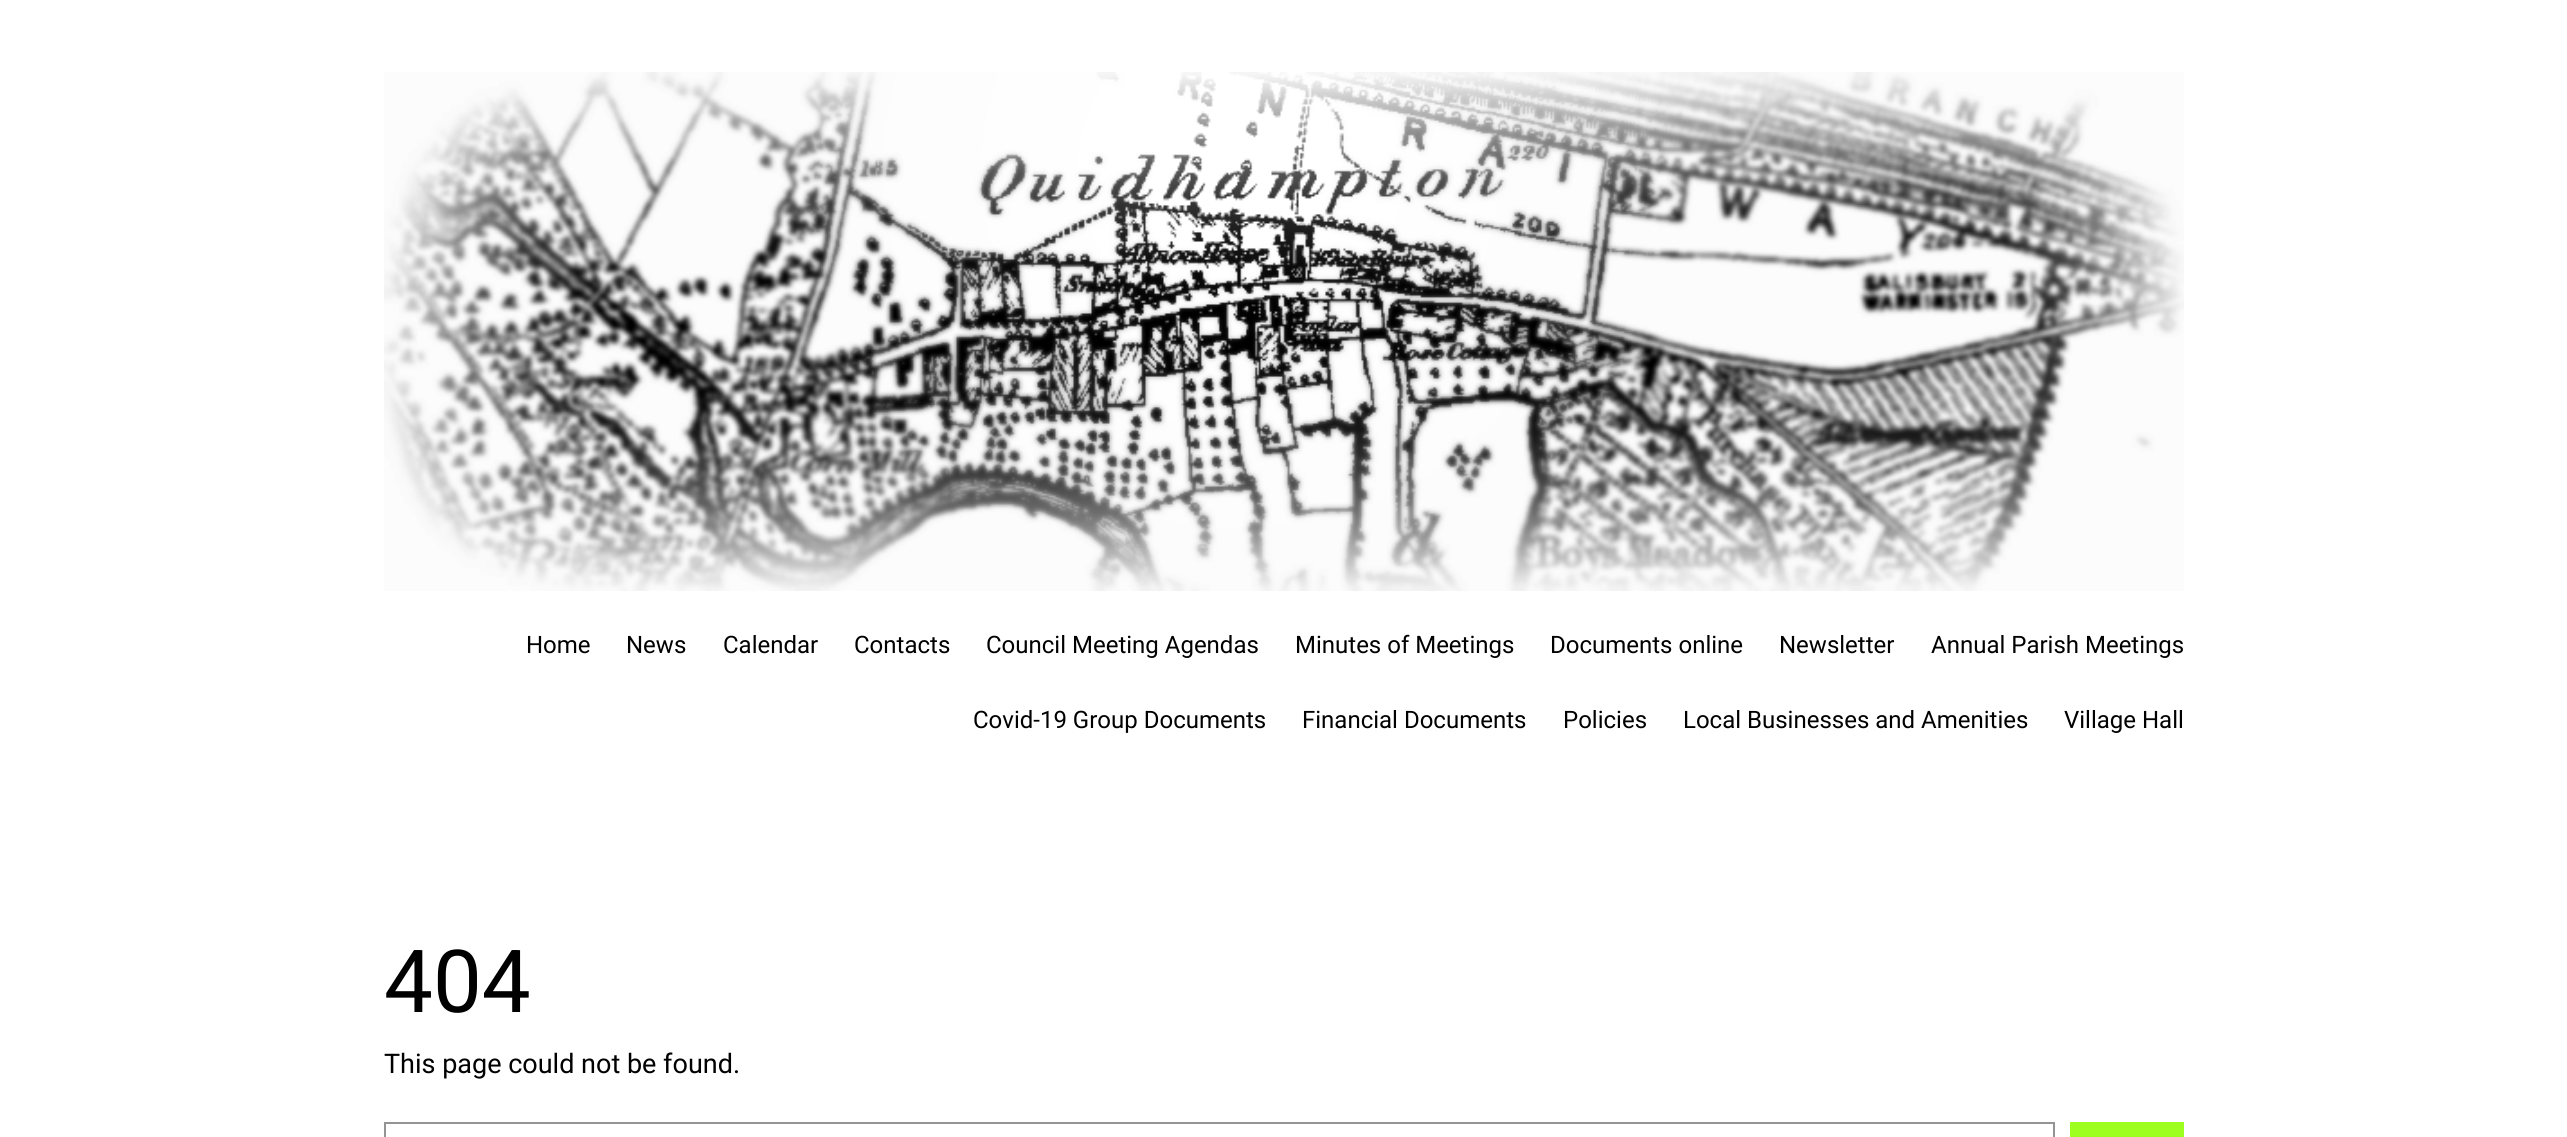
import math
import cairo

surface = cairo.ImageSurface(cairo.FORMAT_RGB24, 2567, 1137)
c = cairo.Context(surface)
options = cairo.FontOptions()
options.set_hint_metrics(cairo.HINT_METRICS_OFF)
options.set_hint_style(cairo.HINT_STYLE_NONE)
c.set_font_options(options)
c.set_miter_limit(4)
def C(code):
 c.set_source_rgb(*(v / 255 for v in bytes.fromhex(code[-6:])))
def F(family, size, italic, bold):
 c.select_font_face(family, cairo.FONT_SLANT_ITALIC if italic else cairo.FONT_SLANT_NORMAL, cairo.FONT_WEIGHT_BOLD if bold else cairo.FONT_WEIGHT_NORMAL)
 c.set_font_size(size)
def T(x, y, s):
 c.move_to(x, y)
 c.show_text(s)
def R(x, y, w, h):
 c.rectangle(x, y, w, h)
 c.fill()
def I(path, x, y, w, h):
 c.save()
 c.set_source_surface(cairo.ImageSurface.create_from_png(path), x, y)
 c.rectangle(x, y, w, h)
 c.fill()
 c.restore()
C('ffffff')
c.paint()
I('1.png',384,72,1800,519)
F('Roboto',24,0,0)
C('000000')
T(526,653,'Home')
T(626,653,'News')
T(723,653,'Calendar')
T(854,653,'Contacts')
T(986,653,'Council Meeting Agendas')
T(1295,653,'Minutes of Meetings')
T(1550,653,'Documents online')
T(1779,653,'Newsletter')
T(1931,653,'Annual Parish Meetings')
T(973,728,'Covid-19 Group Documents')
T(1302,728,'Financial Documents')
T(1563,728,'Policies')
T(1683,728,'Local Businesses and Amenities')
T(2064,728,'Village Hall')
F('Roboto',87,0,0)
T(384,1012,'404')
F('Roboto',27,0,0)
T(384,1073,'This page could not be found.')
c.rectangle(385,1123,1669,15)
C('949494')
c.stroke()
C('9dff20')
R(2070,1122,114,15)
surface.write_to_png('o.png')
